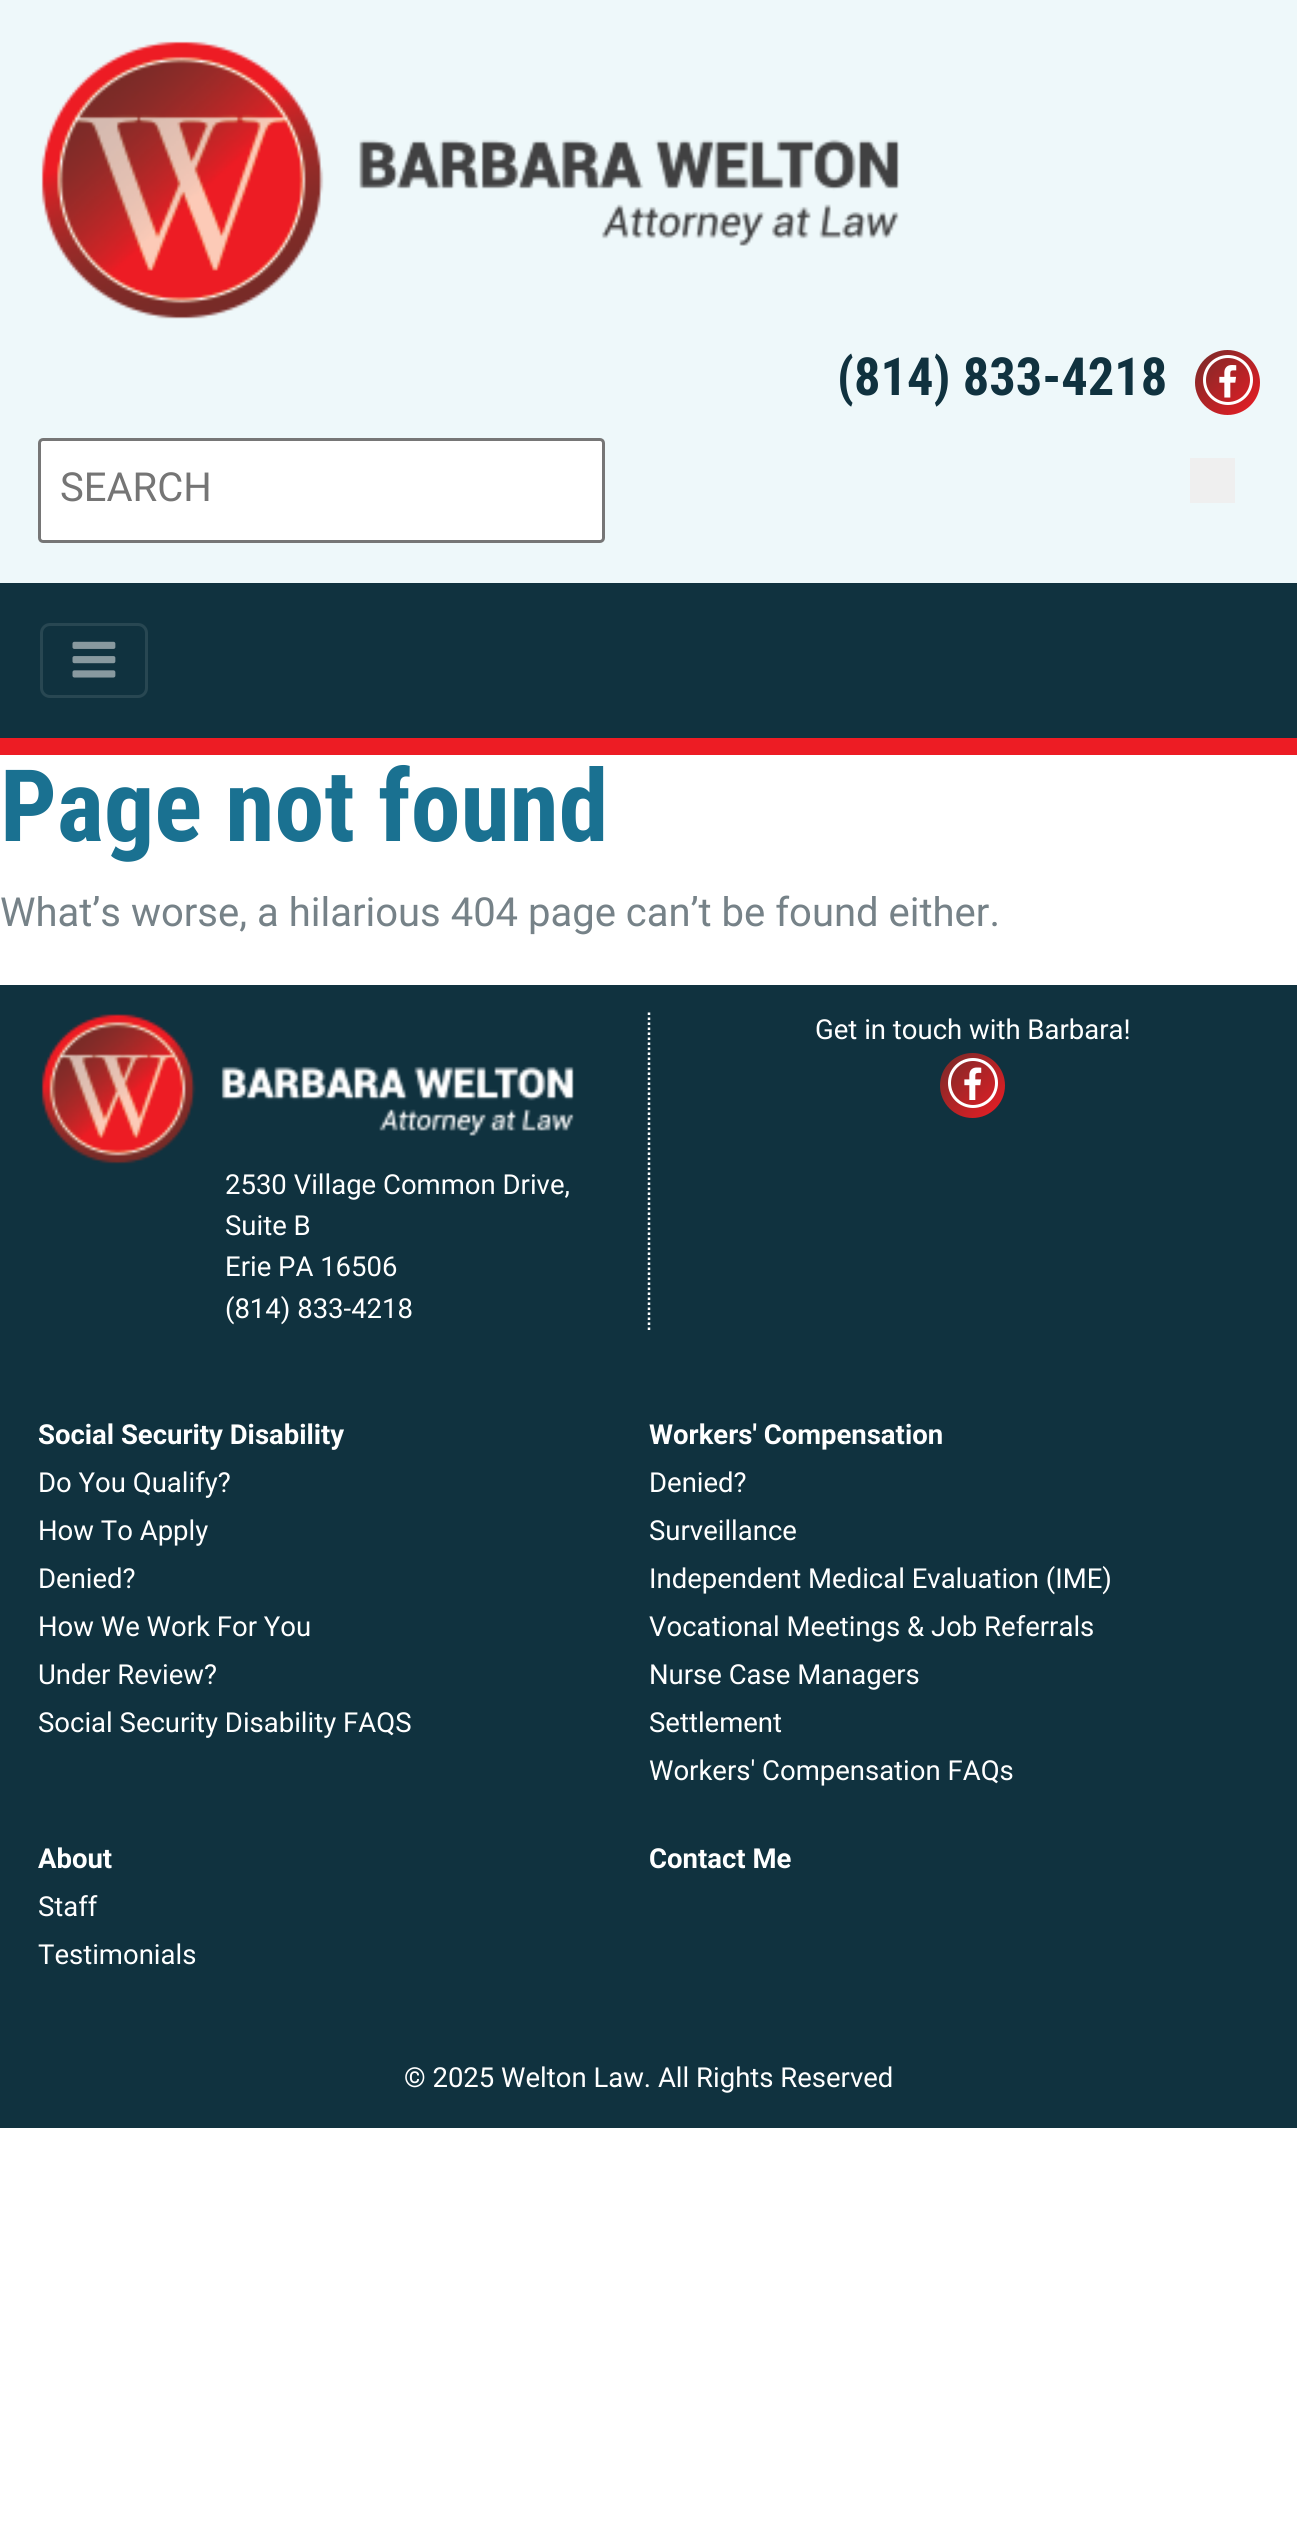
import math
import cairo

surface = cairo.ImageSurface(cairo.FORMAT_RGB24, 1297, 2530)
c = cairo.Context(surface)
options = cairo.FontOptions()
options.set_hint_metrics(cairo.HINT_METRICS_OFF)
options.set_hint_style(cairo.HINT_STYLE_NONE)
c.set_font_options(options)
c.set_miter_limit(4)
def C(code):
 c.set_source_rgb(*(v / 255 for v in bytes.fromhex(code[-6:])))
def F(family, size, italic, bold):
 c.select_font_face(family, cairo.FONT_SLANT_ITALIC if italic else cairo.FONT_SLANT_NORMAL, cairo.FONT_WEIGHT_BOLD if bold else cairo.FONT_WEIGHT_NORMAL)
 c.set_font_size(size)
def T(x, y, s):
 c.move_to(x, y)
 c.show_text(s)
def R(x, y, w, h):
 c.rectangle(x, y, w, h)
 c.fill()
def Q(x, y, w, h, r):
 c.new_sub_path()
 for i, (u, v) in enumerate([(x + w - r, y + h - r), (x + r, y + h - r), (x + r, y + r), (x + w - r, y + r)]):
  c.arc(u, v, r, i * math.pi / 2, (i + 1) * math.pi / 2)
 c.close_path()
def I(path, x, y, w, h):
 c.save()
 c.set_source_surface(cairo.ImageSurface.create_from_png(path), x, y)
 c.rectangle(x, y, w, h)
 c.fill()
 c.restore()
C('ffffff')
c.paint()
C('eef8fa')
R(0,0,1297,583)
I('1.png',41,41,858,278)
F('Roboto Condensed',52.5,0,1)
C('10323f')
T(837,395,'(814) 833-4218')
gradient = cairo.LinearGradient(1195,350,1260,415)
gradient.add_color_stop_rgba(0,0.463,0.169,0.161,1)
gradient.add_color_stop_rgba(1,0.929,0.11,0.141,1)
c.set_source(gradient)
c.new_path()
c.arc(1227.5,382.5,32.5,0,2 * math.pi)
c.fill()
c.arc(1228,380,23.5,0,2 * math.pi)
C('ffffff')
c.set_line_width(3)
c.stroke()
I('2.png',1219,365,18,33)
Q(39.5,439.5,564,102,3.5)
c.fill_preserve()
C('767676')
c.stroke()
F('Roboto',40,0,0)
C('757575')
T(60,501,'SEARCH')
C('efefef')
R(1190,458,45,45)
C('10323f')
R(0,583,1297,155)
C('ed1c24')
R(0,738,1297,17)
Q(41.5,624.5,105,72,8.5)
C('284752')
c.stroke()
I('3.png',72,641,44,37)
F('Roboto Condensed',100,0,1)
C('1a7191')
T(0,841,'Page not found')
F('Roboto',40,0,0)
C('768288')
T(0,926,'What’s worse, a hilarious 404 page can’t be found either.')
C('10323f')
R(0,985,1297,1143)
F('Roboto',27.5,0,0)
C('ffffff')
T(815,1039,'Get in touch with Barbara!')
gradient = cairo.LinearGradient(940,1053,1005,1118)
gradient.add_color_stop_rgba(0,0.463,0.169,0.161,1)
gradient.add_color_stop_rgba(1,0.929,0.11,0.141,1)
c.set_source(gradient)
c.new_path()
c.arc(972.5,1085.5,32.5,0,2 * math.pi)
c.fill()
c.arc(973,1083,23.5,0,2 * math.pi)
C('ffffff')
c.stroke()
I('4.png',964,1067,18,33)
c.new_path()
c.move_to(649,1012.5)
c.line_to(649,1332.5)
c.set_line_width(2.5)
c.set_dash([2.5,2.5])
c.stroke()
I('5.png',41,1014,533,150)
T(225,1194,'2530 Village Common Drive,')
T(225,1235,'Suite B')
T(225,1276,'Erie PA 16506')
T(225,1318,'(814) 833-4218')
F('Roboto',27.5,0,1)
T(38,1444,'Social Security Disability')
F('Roboto',27.5,0,0)
T(38,1492,'Do You Qualify?')
T(38,1540,'How To Apply')
T(38,1588,'Denied?')
T(38,1636,'How We Work For You')
T(38,1684,'Under Review?')
T(38,1732,'Social Security Disability FAQS')
F('Roboto',27.5,0,1)
T(649,1444,'Workers\' Compensation')
F('Roboto',27.5,0,0)
T(649,1492,'Denied?')
T(649,1540,'Surveillance')
T(649,1588,'Independent Medical Evaluation (IME)')
T(649,1636,'Vocational Meetings & Job Referrals')
T(649,1684,'Nurse Case Managers')
T(649,1732,'Settlement')
T(649,1780,'Workers\' Compensation FAQs')
F('Roboto',27.5,0,1)
T(38,1868,'About')
F('Roboto',27.5,0,0)
T(38,1916,'Staff')
T(38,1964,'Testimonials')
F('Roboto',27.5,0,1)
T(649,1868,'Contact Me')
F('Roboto',27.5,0,0)
T(404,2087,'© 2025 Welton Law. All Rights Reserved')
surface.write_to_png('o.png')
